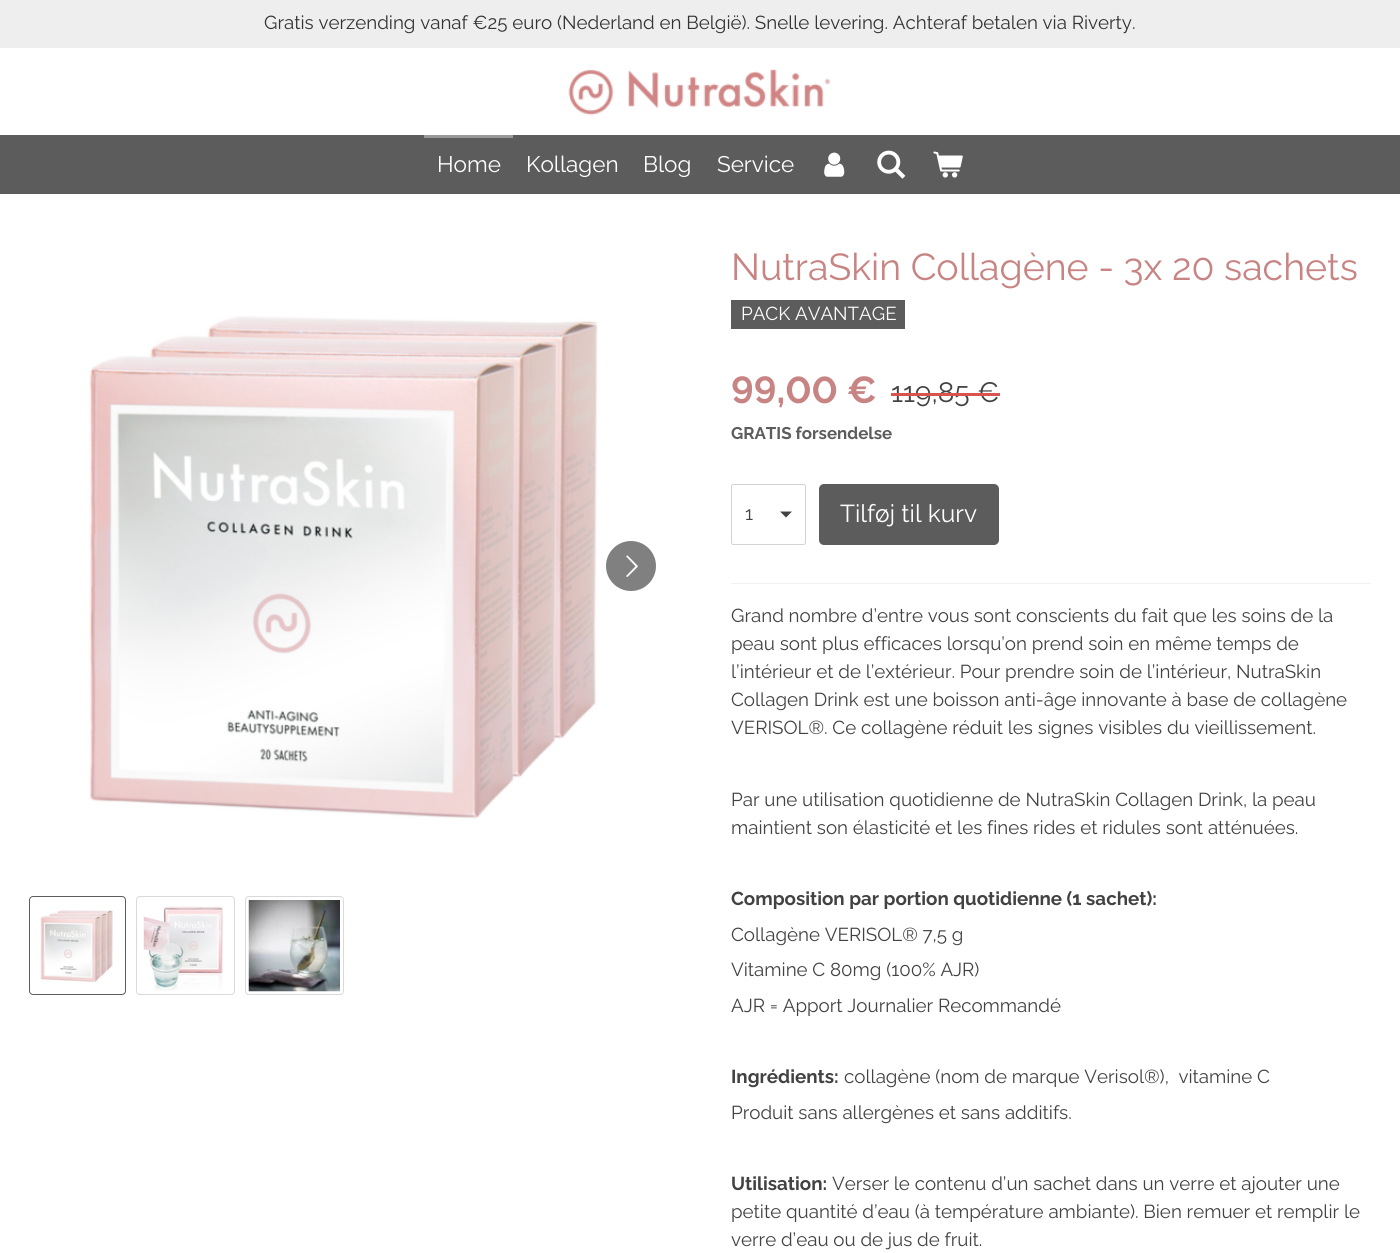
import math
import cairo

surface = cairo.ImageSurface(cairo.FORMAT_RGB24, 1400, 1253)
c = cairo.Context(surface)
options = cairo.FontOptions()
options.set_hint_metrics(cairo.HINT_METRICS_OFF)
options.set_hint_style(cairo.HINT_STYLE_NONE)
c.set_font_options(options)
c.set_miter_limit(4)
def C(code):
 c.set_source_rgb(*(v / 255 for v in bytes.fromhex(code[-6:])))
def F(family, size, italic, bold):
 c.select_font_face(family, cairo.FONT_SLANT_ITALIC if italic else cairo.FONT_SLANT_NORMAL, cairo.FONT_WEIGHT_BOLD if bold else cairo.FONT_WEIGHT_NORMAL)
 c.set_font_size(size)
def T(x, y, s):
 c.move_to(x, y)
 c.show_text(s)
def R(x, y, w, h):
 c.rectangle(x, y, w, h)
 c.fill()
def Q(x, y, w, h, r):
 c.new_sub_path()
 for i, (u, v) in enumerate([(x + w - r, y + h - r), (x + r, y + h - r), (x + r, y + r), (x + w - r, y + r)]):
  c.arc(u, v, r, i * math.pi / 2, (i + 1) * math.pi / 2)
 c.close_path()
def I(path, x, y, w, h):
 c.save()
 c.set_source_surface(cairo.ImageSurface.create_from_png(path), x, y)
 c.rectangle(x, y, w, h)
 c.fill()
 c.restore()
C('ffffff')
c.paint()
C('eeeeee')
R(0,0,1400,48)
F('Raleway',18.75,0,0)
C('333333')
T(264,29,'Gratis verzending vanaf €25 euro (Nederland en België). Snelle levering. Achteraf betalen via Riverty.')
I('1.png',568,69,263,47)
C('5c5c5c')
R(0,135,1400,59)
C('999999')
R(424,135,89,3)
F('Raleway',22.5,0,0)
C('ffffff')
T(437,172,'Home')
T(526,172,'Kollagen')
T(643,172,'Blog')
T(717,172,'Service')
I('2.png',824,152,21,25)
I('3.png',877,150,29,29)
I('4.png',933,151,30,27)
F('Raleway',37.5,0,0)
C('c88383')
T(731,280,'NutraSkin Collagène - 3x 20 sachets')
C('5c5c5c')
R(731,300,174,29)
F('Raleway',18.75,0,0)
C('ffffff')
T(741,320,'PACK AVANTAGE')
I('5.png',89,316,509,503)
C('808080')
c.arc(631,566,25,0,2 * math.pi)
c.fill()
I('6.png',626,555,12,22)
Q(29.5,896.5,96,98,3.5)
C('5c5c5c')
c.set_line_width(1)
c.stroke()
I('7.png',40,910,73,72)
Q(136.5,896.5,98,98,3.5)
C('d9d9d9')
c.stroke()
I('8.png',143,906,80,85)
Q(245.5,896.5,98,98,3.5)
c.stroke()
I('9.png',248,900,92,92)
F('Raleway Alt',37.5,0,1)
C('c88383')
T(731,403,'99,00 €')
F('Raleway',28,0,0)
C('424242')
T(891,402,'119,85 €')
C('d9534f')
R(891,393,109,3)
F('Raleway',16.9,0,1)
C('5c5c5c')
T(731,439,'GRATIS forsendelse')
C('424242')
c.new_path()
c.move_to(786,517.5)
c.line_to(780,511.5)
c.line_to(792,511.5)
c.close_path()
c.fill()
Q(731.5,484.5,74,60,2)
C('d3d3d3')
c.stroke()
F('Raleway',18.75,0,0)
C('424242')
T(745,520,'1')
C('5c5c5c')
Q(819,484,180,61,5)
c.fill()
F('Raleway',24.5,0,0)
C('ffffff')
T(840,522,'Tilføj til kurv')
C('f2f2f2')
R(731,583,640,1)
F('Raleway',18.75,0,0)
C('424242')
T(731,622,'Grand nombre d’entre vous sont conscients du fait que les soins de la')
T(731,650,'peau sont plus efficaces lorsqu’on prend soin en même temps de')
T(731,678,'l’intérieur et de l’extérieur. Pour prendre soin de l’intérieur, NutraSkin')
T(731,706,'Collagen Drink est une boisson anti-âge innovante à base de collagène')
T(731,734,'VERISOL®. Ce collagène réduit les signes visibles du vieillissement.')
T(731,806,'Par une utilisation quotidienne de NutraSkin Collagen Drink, la peau')
T(731,834,'maintient son élasticité et les fines rides et ridules sont atténuées.')
F('Raleway',18.75,0,1)
T(731,905,'Composition par portion quotidienne (1 sachet):')
F('Raleway',18.75,0,0)
T(731,941,'Collagène VERISOL® 7,5 g')
T(731,976,'Vitamine C 80mg (100% AJR)')
T(731,1012,'AJR = Apport Journalier Recommandé')
F('Raleway',18.75,0,1)
T(731,1083,'Ingrédients:')
F('Raleway',18.75,0,0)
T(844,1083,'collagène (nom de marque Verisol®),  vitamine C')
T(731,1119,'Produit sans allergènes et sans additifs.')
F('Raleway',18.75,0,1)
T(731,1190,'Utilisation:')
F('Raleway',18.75,0,0)
T(832,1190,'Verser le contenu d’un sachet dans un verre et ajouter une')
T(731,1218,'petite quantité d’eau (à température ambiante). Bien remuer et remplir le')
T(731,1246,'verre d’eau ou de jus de fruit.')
surface.write_to_png('o.png')
